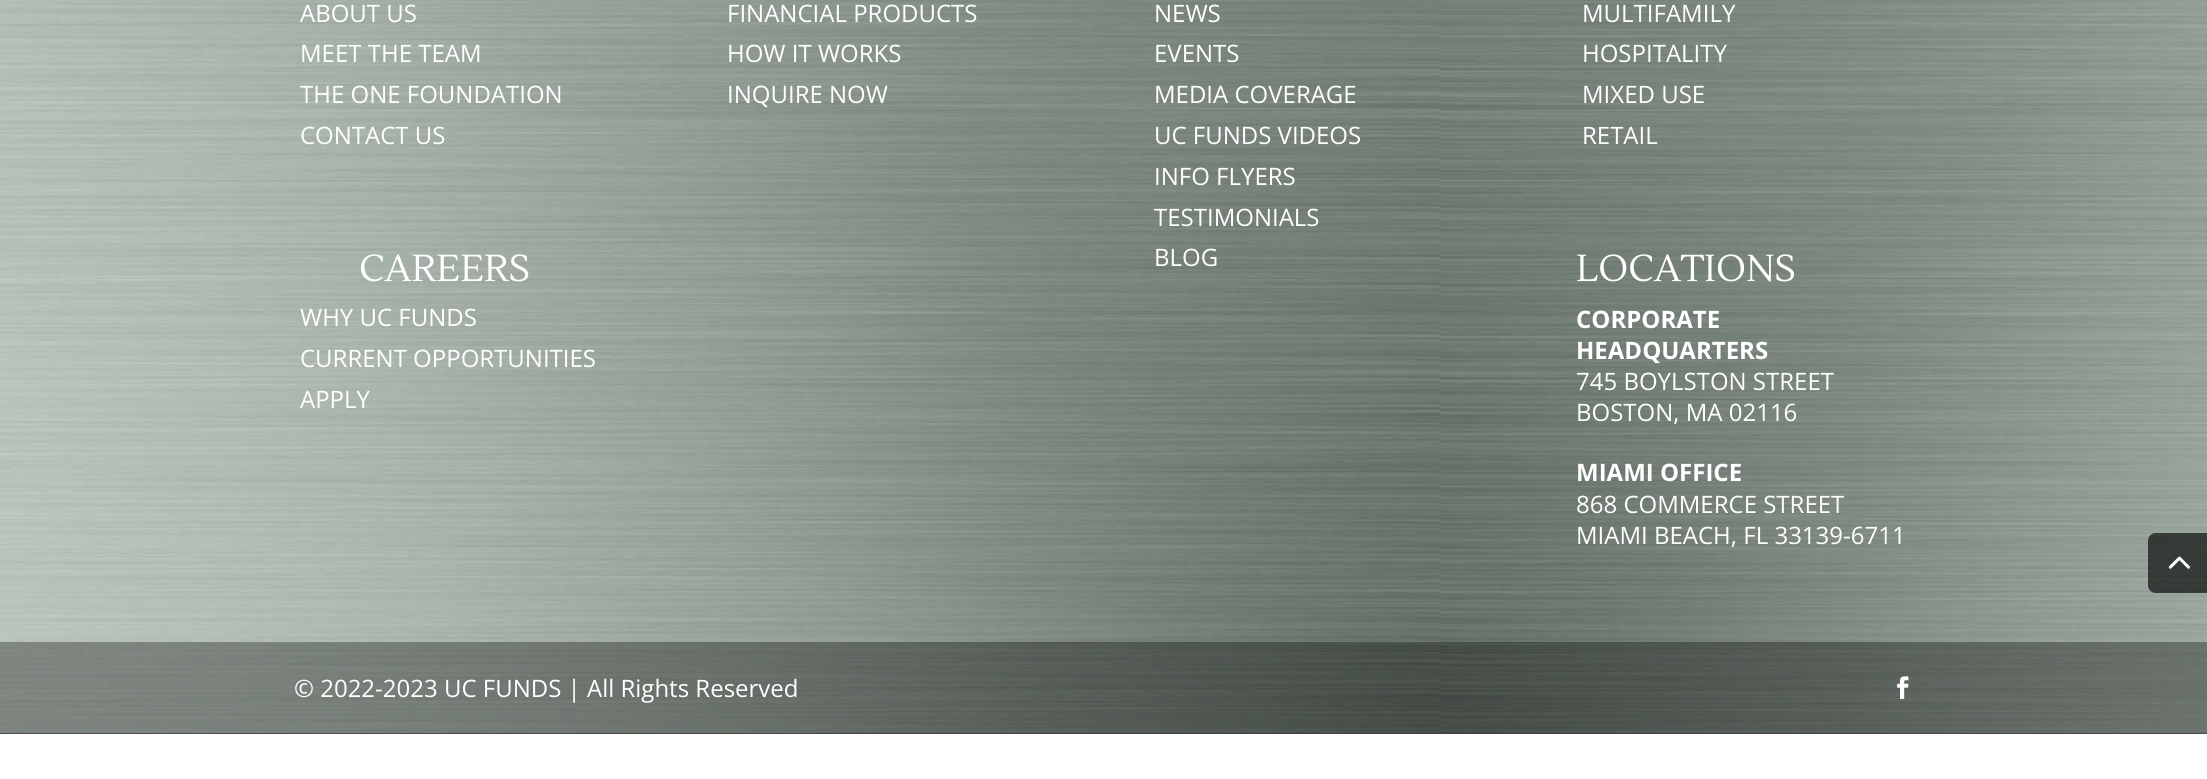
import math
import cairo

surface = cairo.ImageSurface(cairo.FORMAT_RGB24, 2207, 779)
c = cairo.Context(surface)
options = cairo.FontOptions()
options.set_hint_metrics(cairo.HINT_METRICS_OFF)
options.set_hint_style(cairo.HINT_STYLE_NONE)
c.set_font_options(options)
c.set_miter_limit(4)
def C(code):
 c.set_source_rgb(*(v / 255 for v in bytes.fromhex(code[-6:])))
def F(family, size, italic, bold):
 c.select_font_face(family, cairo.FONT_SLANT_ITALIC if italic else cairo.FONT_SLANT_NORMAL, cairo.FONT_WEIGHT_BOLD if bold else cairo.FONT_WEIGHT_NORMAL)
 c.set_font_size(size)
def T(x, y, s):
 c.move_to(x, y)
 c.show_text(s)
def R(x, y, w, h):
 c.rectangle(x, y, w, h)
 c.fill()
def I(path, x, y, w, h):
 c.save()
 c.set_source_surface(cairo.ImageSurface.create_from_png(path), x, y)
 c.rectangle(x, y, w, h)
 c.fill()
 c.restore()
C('ffffff')
c.paint()
C('5a5a5a')
R(0,733,2207,1)
I('1.png',0,0,2207,734)
F('Open Sans',24,0,0)
C('ffffff')
T(300,22,'ABOUT US')
T(300,62,'MEET THE TEAM')
T(300,103,'THE ONE FOUNDATION')
T(300,144,'CONTACT US')
F('Lustria',37.5,0,0)
T(359,281,'CAREERS')
F('Open Sans',24,0,0)
T(300,326,'WHY UC FUNDS')
T(300,367,'CURRENT OPPORTUNITIES')
T(300,408,'APPLY')
T(727,22,'FINANCIAL PRODUCTS')
T(727,62,'HOW IT WORKS')
T(727,103,'INQUIRE NOW')
T(1154,22,'NEWS')
T(1154,62,'EVENTS')
T(1154,103,'MEDIA COVERAGE')
T(1154,144,'UC FUNDS VIDEOS')
T(1154,185,'INFO FLYERS')
T(1154,226,'TESTIMONIALS')
T(1154,266,'BLOG')
T(1582,22,'MULTIFAMILY')
T(1582,62,'HOSPITALITY')
T(1582,103,'MIXED USE')
T(1582,144,'RETAIL')
F('Lustria',37.5,0,0)
T(1576,281,'LOCATIONS')
F('Open Sans',24,0,1)
T(1576,328,'CORPORATE')
T(1576,359,'HEADQUARTERS')
F('Open Sans',24,0,0)
T(1576,390,'745 BOYLSTON STREET')
T(1576,421,'BOSTON, MA 02116')
F('Open Sans',24,0,1)
T(1576,481,'MIAMI OFFICE')
F('Open Sans',24,0,0)
T(1576,513,'868 COMMERCE STREET')
T(1576,544,'MIAMI BEACH, FL 33139-6711')
c.set_source_rgba(0,0,0,0.32)
R(0,642,2207,92)
C('ffffff')
T(294,697,'© 2022-2023 UC FUNDS | All Rights Reserved')
I('2.png',1897,676,12,23)
c.set_source_rgba(0,0,0,0.4)
c.new_path()
c.move_to(2156,533)
c.line_to(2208,533)
c.line_to(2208,593)
c.line_to(2156,593)
c.curve_to(2151.5,593,2148,589.5,2148,585)
c.line_to(2148,541)
c.curve_to(2148,536.5,2151.5,533,2156,533)
c.close_path()
c.fill()
I('3.png',2168,556,22,13)
c.new_path()
c.move_to(2156,533)
c.line_to(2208,533)
c.line_to(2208,593)
c.line_to(2156,593)
c.curve_to(2151.5,593,2148,589.5,2148,585)
c.line_to(2148,541)
c.curve_to(2148,536.5,2151.5,533,2156,533)
c.close_path()
c.fill()
I('4.png',2168,556,22,13)
surface.write_to_png('o.png')
